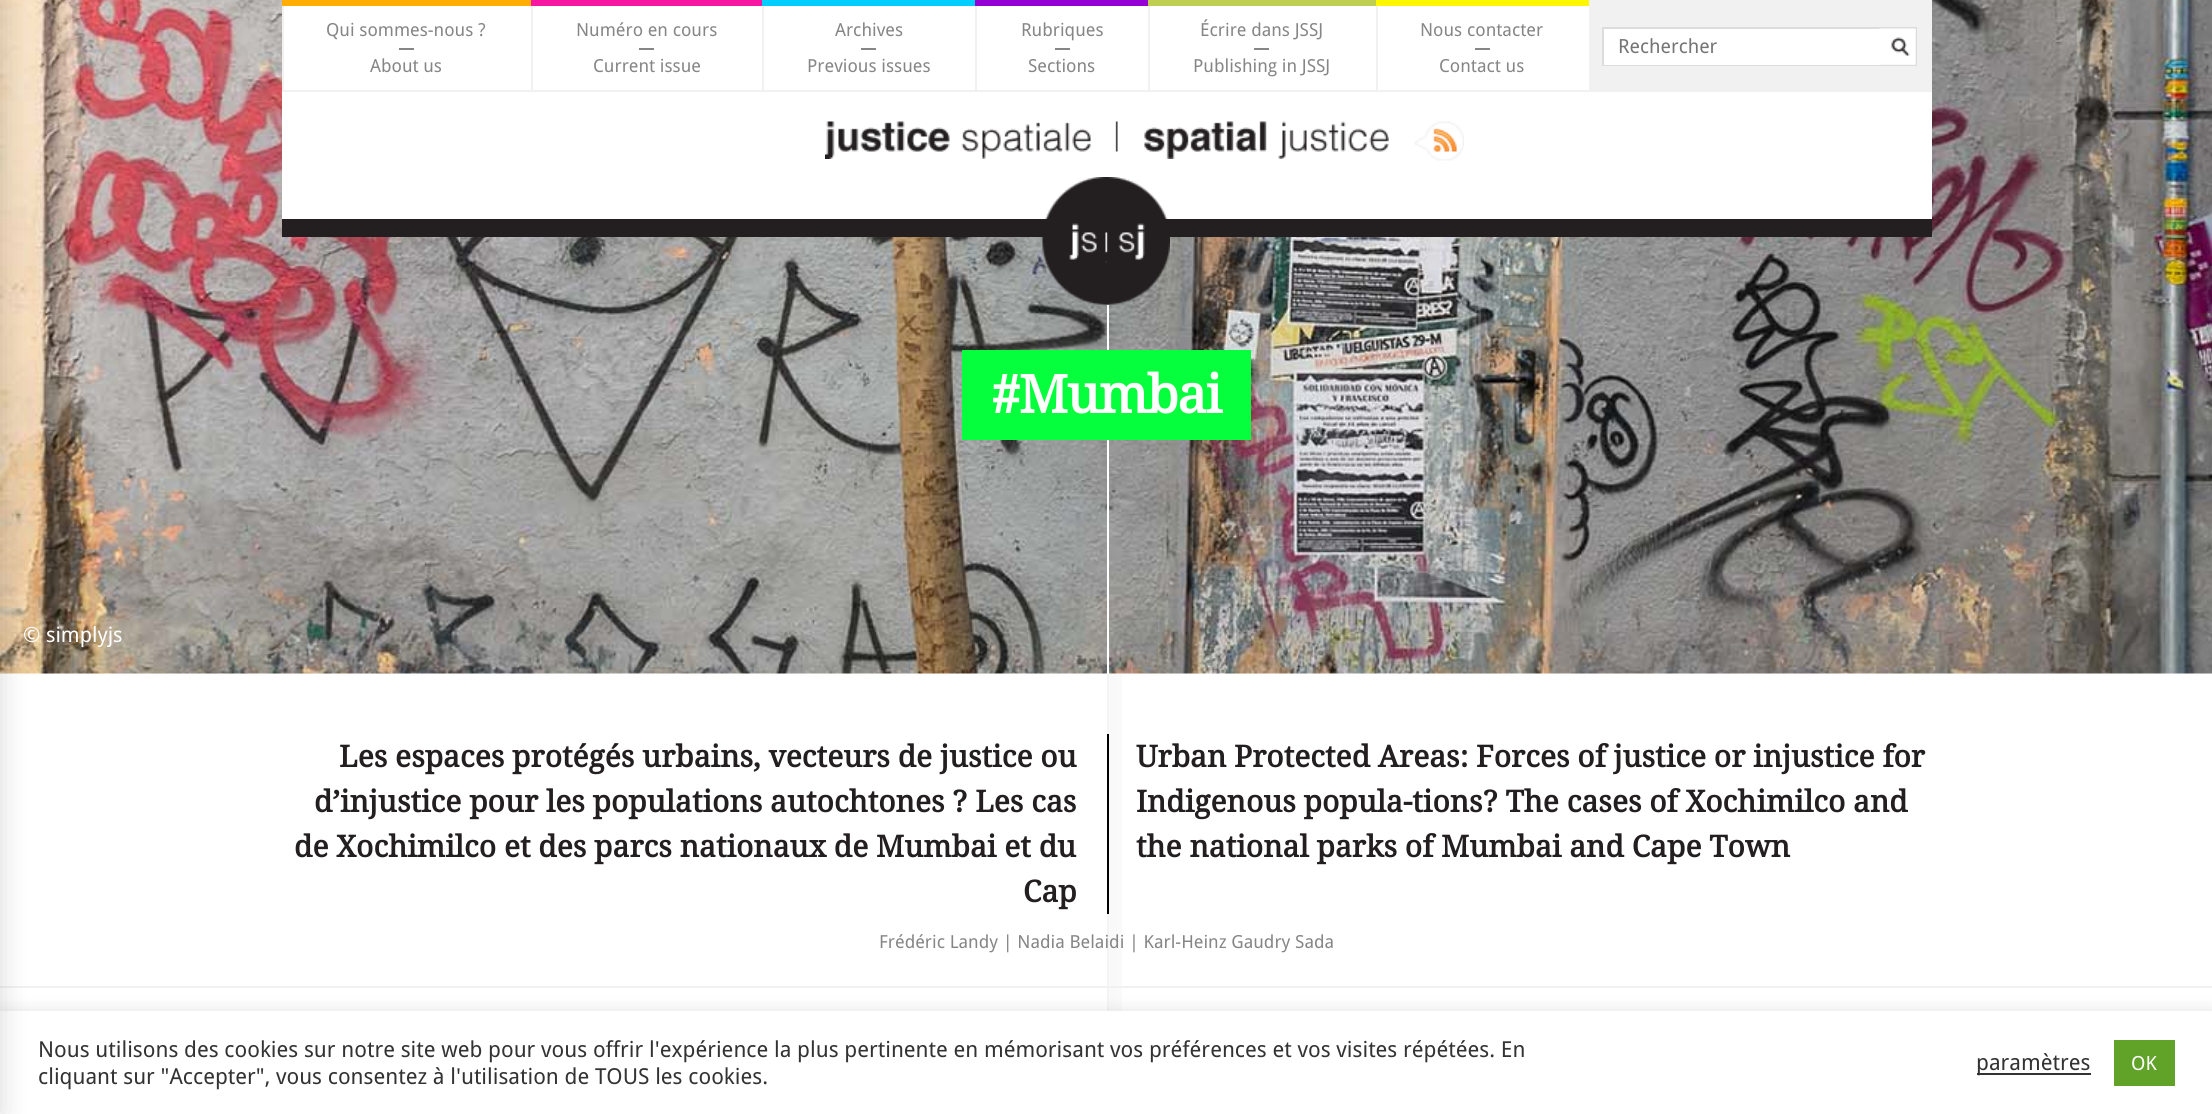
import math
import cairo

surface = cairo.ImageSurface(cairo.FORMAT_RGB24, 2212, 1114)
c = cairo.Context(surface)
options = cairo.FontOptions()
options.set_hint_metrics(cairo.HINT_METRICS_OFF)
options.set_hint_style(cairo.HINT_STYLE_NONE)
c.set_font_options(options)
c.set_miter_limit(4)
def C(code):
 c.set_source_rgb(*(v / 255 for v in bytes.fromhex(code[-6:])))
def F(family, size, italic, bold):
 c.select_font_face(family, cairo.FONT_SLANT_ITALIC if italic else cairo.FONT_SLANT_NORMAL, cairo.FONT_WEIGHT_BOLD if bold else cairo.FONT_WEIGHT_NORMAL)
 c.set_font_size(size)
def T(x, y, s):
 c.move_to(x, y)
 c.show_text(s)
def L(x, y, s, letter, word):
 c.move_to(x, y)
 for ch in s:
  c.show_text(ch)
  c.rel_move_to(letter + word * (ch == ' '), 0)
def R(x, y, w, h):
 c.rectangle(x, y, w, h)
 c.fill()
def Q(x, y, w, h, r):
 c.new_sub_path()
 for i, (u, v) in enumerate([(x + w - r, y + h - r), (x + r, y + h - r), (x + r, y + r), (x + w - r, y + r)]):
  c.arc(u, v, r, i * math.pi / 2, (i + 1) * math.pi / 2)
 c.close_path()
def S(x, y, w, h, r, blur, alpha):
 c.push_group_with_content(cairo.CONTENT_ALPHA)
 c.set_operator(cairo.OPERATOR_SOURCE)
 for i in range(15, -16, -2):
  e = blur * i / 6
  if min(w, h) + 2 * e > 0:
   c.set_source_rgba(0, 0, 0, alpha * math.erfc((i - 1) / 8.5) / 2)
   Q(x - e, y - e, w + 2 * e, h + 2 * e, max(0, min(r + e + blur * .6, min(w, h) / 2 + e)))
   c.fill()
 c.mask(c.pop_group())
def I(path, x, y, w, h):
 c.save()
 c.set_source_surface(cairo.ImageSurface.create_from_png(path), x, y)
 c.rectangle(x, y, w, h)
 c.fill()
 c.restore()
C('ffffff')
c.paint()
I('6.png',1107,673,15,338)
I('1.png',0,0,2212,674)
C('f1f1f1')
R(0,986,2212,2)
C('acabab')
S(0,1010,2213,103,0,7.5,.3)
C('ffffff')
R(0,1011,2212,103)
C('000000')
S(-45,0,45,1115,0,15,.15)
C('f1f1f1')
R(282,0,1650,92)
C('ffffff')
R(284,6,247,84)
C('ffae00')
R(282,0,249,6)
F('Droid Sans',18,0,0)
C('868686')
T(326,36,'Qui sommes-nous ?')
R(399,48,15,2)
T(370,72,'About us')
C('ffffff')
R(533,6,229,84)
C('f716a1')
R(531,0,231,6)
C('868686')
T(576,36,'Numéro en cours')
R(639,48,15,2)
T(593,72,'Current issue')
C('ffffff')
R(764,6,211,84)
C('01cdff')
R(762,0,213,6)
C('868686')
T(835,36,'Archives')
R(861,48,15,2)
T(807,72,'Previous issues')
C('ffffff')
R(977,6,171,84)
C('9400d3')
R(975,0,173,6)
C('868686')
T(1021,36,'Rubriques')
R(1055,48,15,2)
T(1028,72,'Sections')
C('ffffff')
R(1150,6,226,84)
C('bece51')
R(1148,0,228,6)
C('868686')
T(1200,36,'Écrire dans JSSJ')
R(1254,48,15,2)
T(1193,72,'Publishing in JSSJ')
C('ffffff')
R(1378,6,211,84)
C('fff601')
R(1376,0,213,6)
C('868686')
T(1420,36,'Nous contacter')
R(1475,48,15,2)
T(1439,72,'Contact us')
c.rectangle(1603,28,313,37)
C('dcdcdc')
c.stroke()
C('efefef')
R(1880,29,36,36)
I('2.png',1879,28,37,37)
C('ffffff')
R(1604,29,276,36)
F('Droid Sans',19.5,0,0)
C('757575')
T(1618,53,'Rechercher')
C('ffffff')
R(282,92,1650,127)
I('3.png',825,121,564,38)
I('4.png',1414,121,50,40)
C('231f20')
R(282,219,1650,18)
I('5.png',1042,177,128,128)
C('ffffff')
R(1107,305,2,369)
C('06ff3c')
R(962,350,289,90)
F('Droid Serif',52.5,0,1)
C('ffffff')
L(991,413,'#Mumbai',-1.5,0)
F('Droid Sans',21,0,0)
T(23,642,'© simplyjs')
F('Droid Serif',30,0,1)
C('231f20')
T(339,767,'Les espaces protégés urbains, vecteurs de justice ou')
T(314,812,'d’injustice pour les populations autochtones ? Les cas')
T(294,857,'de Xochimilco et des parcs nationaux de Mumbai et du')
T(1023,902,'Cap')
C('000000')
R(1107,734,2,180)
C('231f20')
T(1136,767,'Urban Protected Areas: Forces of justice or injustice for')
T(1136,812,'Indigenous popula-tions? The cases of Xochimilco and')
T(1136,857,'the national parks of Mumbai and Cape Town')
F('Droid Sans',18,0,0)
C('868686')
T(879,948,'Frédéric Landy | Nadia Belaidi | Karl-Heinz Gaudry Sada')
F('Droid Sans',22,0,0)
C('333333')
T(38,1057,'Nous utilisons des cookies sur notre site web pour vous offrir l\'expérience la plus pertinente en mémorisant vos préférences et vos visites répétées. En')
T(38,1084,'cliquant sur "Accepter", vous consentez à l\'utilisation de TOUS les cookies.')
R(1977,1073,114,2)
T(1976,1070,'paramètres')
C('61a229')
R(2114,1040,61,46)
F('Droid Sans',19.5,0,0)
C('ffffff')
T(2131,1070,'OK')
surface.write_to_png('o.png')
